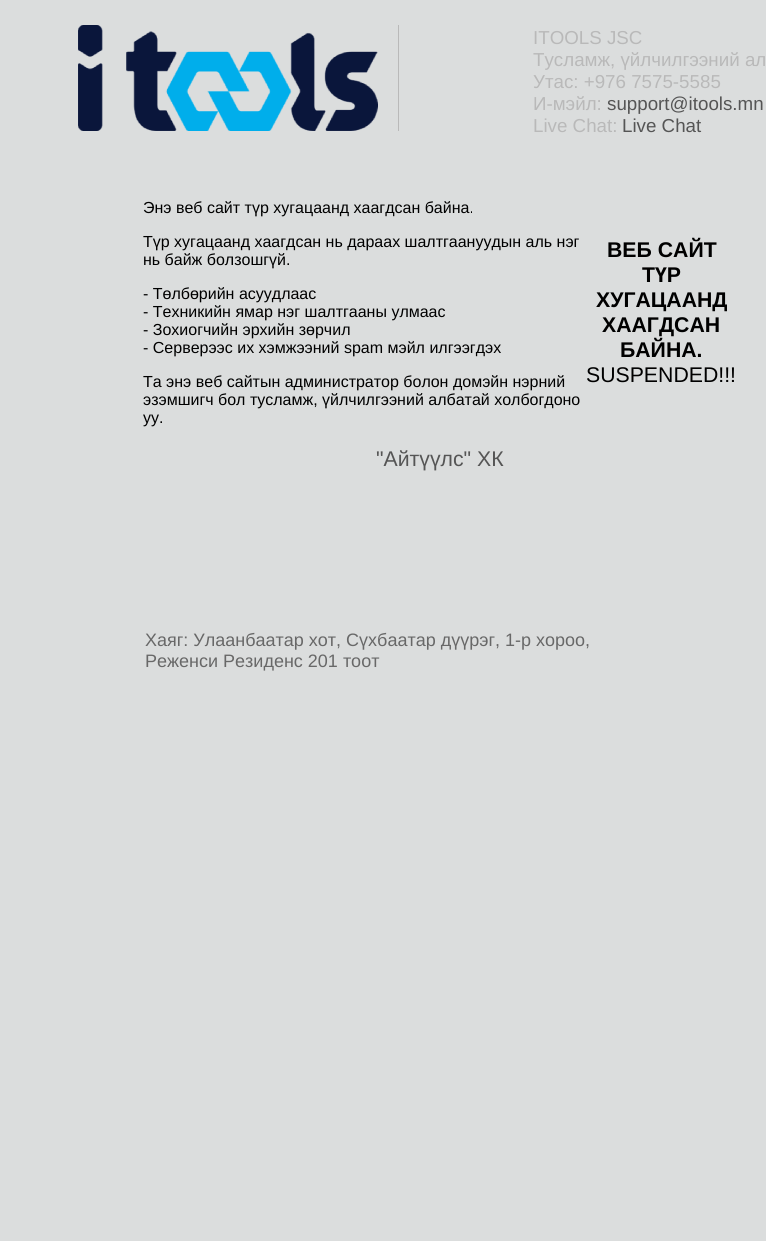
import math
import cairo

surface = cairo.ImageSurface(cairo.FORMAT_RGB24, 766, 1241)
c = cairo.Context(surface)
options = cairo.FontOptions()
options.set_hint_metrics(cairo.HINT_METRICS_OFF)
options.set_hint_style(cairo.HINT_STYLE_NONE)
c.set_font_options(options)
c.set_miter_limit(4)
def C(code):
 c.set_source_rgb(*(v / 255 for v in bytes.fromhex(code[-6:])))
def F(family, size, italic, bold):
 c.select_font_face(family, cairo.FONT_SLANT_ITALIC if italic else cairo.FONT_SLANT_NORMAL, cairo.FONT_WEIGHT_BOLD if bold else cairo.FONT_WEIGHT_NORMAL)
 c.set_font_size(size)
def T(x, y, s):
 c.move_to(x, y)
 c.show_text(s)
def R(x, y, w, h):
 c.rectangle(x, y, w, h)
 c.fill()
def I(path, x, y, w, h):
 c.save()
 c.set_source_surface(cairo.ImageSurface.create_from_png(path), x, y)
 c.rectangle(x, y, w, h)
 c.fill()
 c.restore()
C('dbdddd')
c.paint()
C('b9b9b9')
R(398,25,1,106)
I('1.png',78,25,300,106)
F('Liberation Sans',18.75,0,0)
T(533,44,'ITOOLS JSC')
T(533,66,'Тусламж, үйлчилгээний ал')
T(533,88,'Утас: +976 7575-5585')
T(533,110,'И-мэйл:')
C('555555')
T(607,110,'support@itools.mn')
C('b9b9b9')
T(533,132,'Live Chat:')
C('555555')
T(622,132,'Live Chat')
F('Liberation Sans',16,0,0)
C('000000')
T(143,213,'Энэ веб сайт түр хугацаанд хаагдсан байна.')
T(143,247,'Түр хугацаанд хаагдсан нь дараах шалтгаануудын аль нэг')
T(143,265,'нь байж болзошгүй.')
T(143,299,'- Төлбөрийн асуудлаас')
T(143,317,'- Техникийн ямар нэг шалтгааны улмаас')
T(143,335,'- Зохиогчийн эрхийн зөрчил')
T(143,353,'- Серверээс их хэмжээний spam мэйл илгээгдэх')
T(143,387,'Та энэ веб сайтын администратор болон домэйн нэрний')
T(143,405,'эзэмшигч бол тусламж, үйлчилгээний албатай холбогдоно')
T(143,423,'уу.')
F('Liberation Sans',21.25,0,1)
T(607,257,'ВЕБ САЙТ')
T(642,282,'ТҮР')
T(596,307,'ХУГАЦААНД')
T(602,332,'ХААГДСАН')
T(620,357,'БАЙНА.')
F('Liberation Sans',21.25,0,0)
T(586,382,'SUSPENDED!!!')
C('555555')
T(376,466,'"Айтүүлс" ХК')
F('Liberation Sans',18,0,0)
C('686868')
T(145,646,'Хаяг: Улаанбаатар хот, Сүхбаатар дүүрэг, 1-р хороо,')
T(145,667,'Реженси Резиденс 201 тоот')
surface.write_to_png('o.png')
